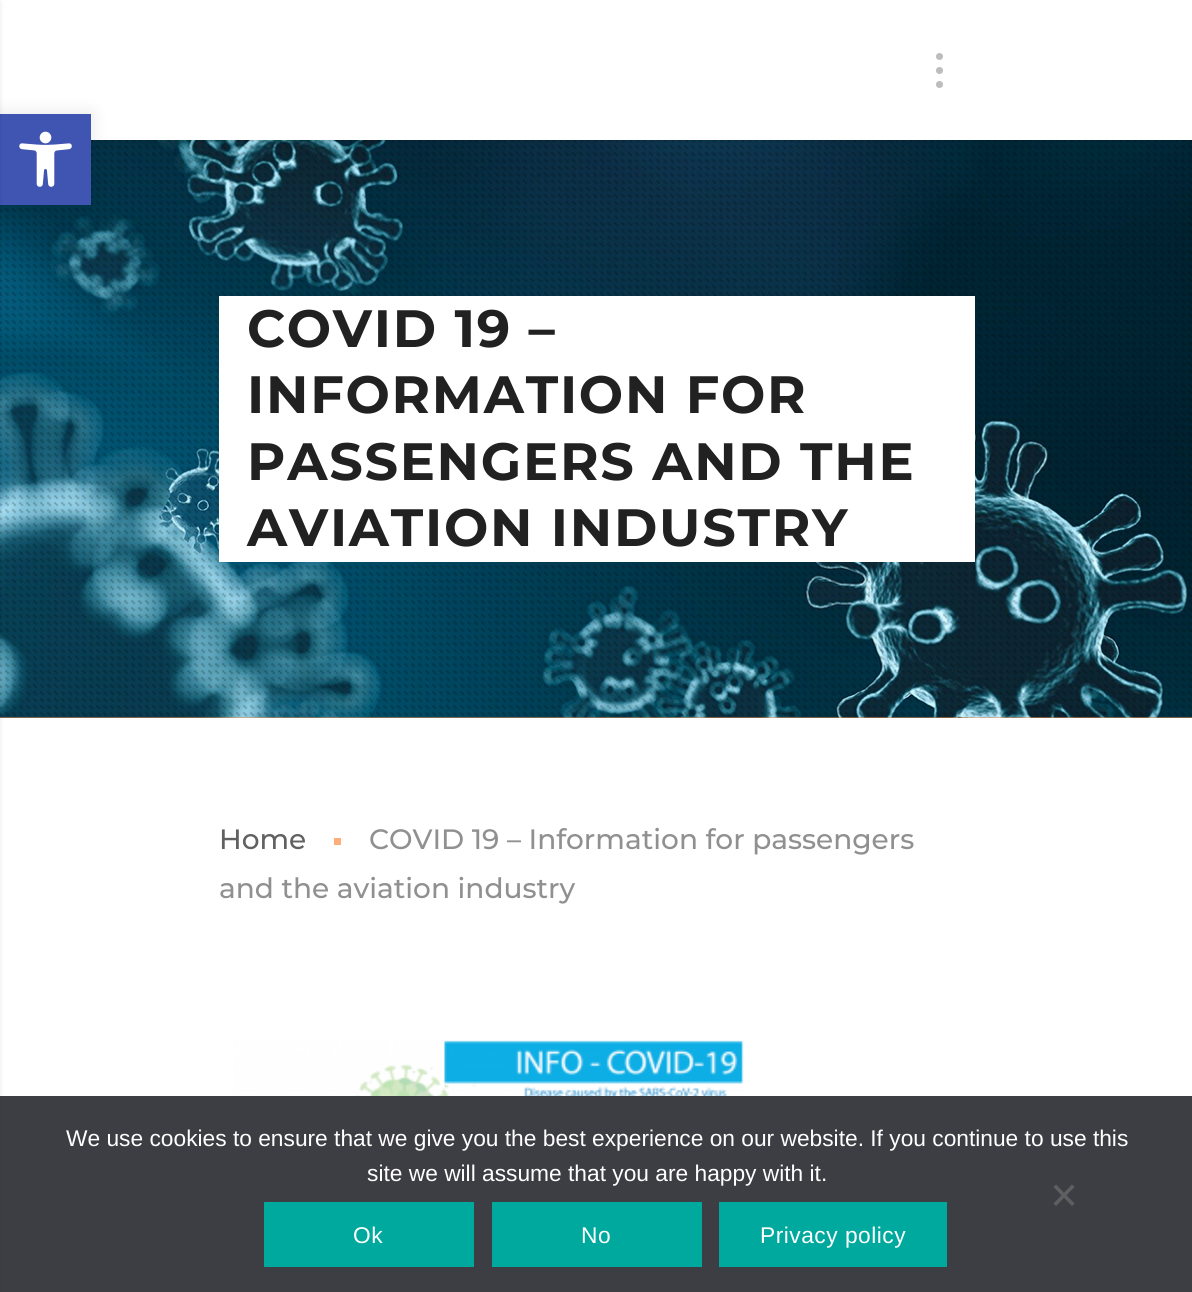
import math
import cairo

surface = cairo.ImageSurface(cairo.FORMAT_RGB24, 1192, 1292)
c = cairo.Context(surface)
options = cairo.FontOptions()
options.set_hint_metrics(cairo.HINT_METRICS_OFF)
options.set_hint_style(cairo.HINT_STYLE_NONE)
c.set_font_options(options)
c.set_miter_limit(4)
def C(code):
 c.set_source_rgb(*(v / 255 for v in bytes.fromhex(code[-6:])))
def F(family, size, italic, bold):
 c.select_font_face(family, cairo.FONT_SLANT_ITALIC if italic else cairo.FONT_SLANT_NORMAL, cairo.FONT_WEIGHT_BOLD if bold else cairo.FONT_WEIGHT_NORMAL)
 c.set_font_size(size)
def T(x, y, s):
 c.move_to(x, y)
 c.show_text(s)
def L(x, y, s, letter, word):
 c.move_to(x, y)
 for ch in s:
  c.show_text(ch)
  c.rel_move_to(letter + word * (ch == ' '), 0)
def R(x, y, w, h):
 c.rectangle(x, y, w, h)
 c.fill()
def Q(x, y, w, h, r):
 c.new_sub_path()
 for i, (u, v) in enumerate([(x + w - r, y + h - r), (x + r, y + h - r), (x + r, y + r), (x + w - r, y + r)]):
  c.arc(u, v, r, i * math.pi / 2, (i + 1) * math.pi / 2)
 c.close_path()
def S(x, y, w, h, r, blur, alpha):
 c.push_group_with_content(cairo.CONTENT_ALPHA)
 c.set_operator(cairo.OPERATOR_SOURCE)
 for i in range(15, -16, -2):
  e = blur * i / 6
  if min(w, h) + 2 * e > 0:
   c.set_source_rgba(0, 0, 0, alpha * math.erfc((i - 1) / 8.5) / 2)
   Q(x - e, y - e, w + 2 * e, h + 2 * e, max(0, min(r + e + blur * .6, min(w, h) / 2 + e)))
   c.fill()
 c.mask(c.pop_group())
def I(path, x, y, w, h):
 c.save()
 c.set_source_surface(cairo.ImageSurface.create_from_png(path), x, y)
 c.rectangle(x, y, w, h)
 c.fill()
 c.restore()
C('ffffff')
c.paint()
C('fd8c40')
R(0,717,1192,1)
I('2.png',0,140,1192,578)
I('3.png',0,140,1192,577)
C('000000')
S(0,2,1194,140,0,2.5,.1)
C('ffffff')
R(0,0,1192,140)
C('000000')
S(0,114,91,91,0,9,.1)
C('4054b2')
R(0,114,91,91)
I('1.png',19,131,53,56)
C('3d3d44')
R(0,1096,1192,196)
C('000000')
S(-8,2,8,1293,0,2.5,.1)
C('bdbdbd')
c.arc(939.5,70.5,3.5,0,2 * math.pi)
c.fill()
c.arc(939.5,56.5,3.5,0,2 * math.pi)
c.fill()
c.arc(939.5,84.5,3.5,0,2 * math.pi)
c.fill()
C('ffffff')
R(219,296,756,266)
F('Montserrat',52.5,0,1)
C('212121')
L(247,347,'COVID 19 –',1.75,0)
L(247,413,'INFORMATION FOR',1.75,0)
L(247,480,'PASSENGERS AND THE',1.75,0)
L(247,546,'AVIATION INDUSTRY',1.75,0)
C('feaf79')
R(334,838,7,7)
F('Montserrat Medium',28,0,0)
C('909090')
T(369,849,'COVID 19 – Information for passengers')
T(219,898,'and the aviation industry')
C('616161')
T(219,849,'Home')
I('4.png',234,1040,510,56)
F('Liberation Sans',22.75,0,0)
C('ffffff')
T(66,1146,'We use cookies to ensure that we give you the best experience on our website. If you continue to use this')
T(367,1181,'site we will assume that you are happy with it.')
C('5f5f62')
c.new_path()
c.move_to(1072,1184.5)
c.line_to(1074.5,1187)
c.line_to(1056,1206)
c.line_to(1053.5,1203.5)
c.close_path()
c.fill()
c.new_path()
c.move_to(1053.5,1187)
c.line_to(1056,1184.5)
c.line_to(1074.5,1203.5)
c.line_to(1072,1206)
c.close_path()
c.fill()
C('00a99d')
R(264,1202,210,65)
C('ffffff')
L(353,1243,'Ok',.5,0)
C('00a99d')
R(492,1202,210,65)
C('ffffff')
L(581,1243,'No',.5,0)
C('00a99d')
R(719,1202,228,65)
C('ffffff')
L(760,1243,'Privacy policy',.5,0)
surface.write_to_png('o.png')
